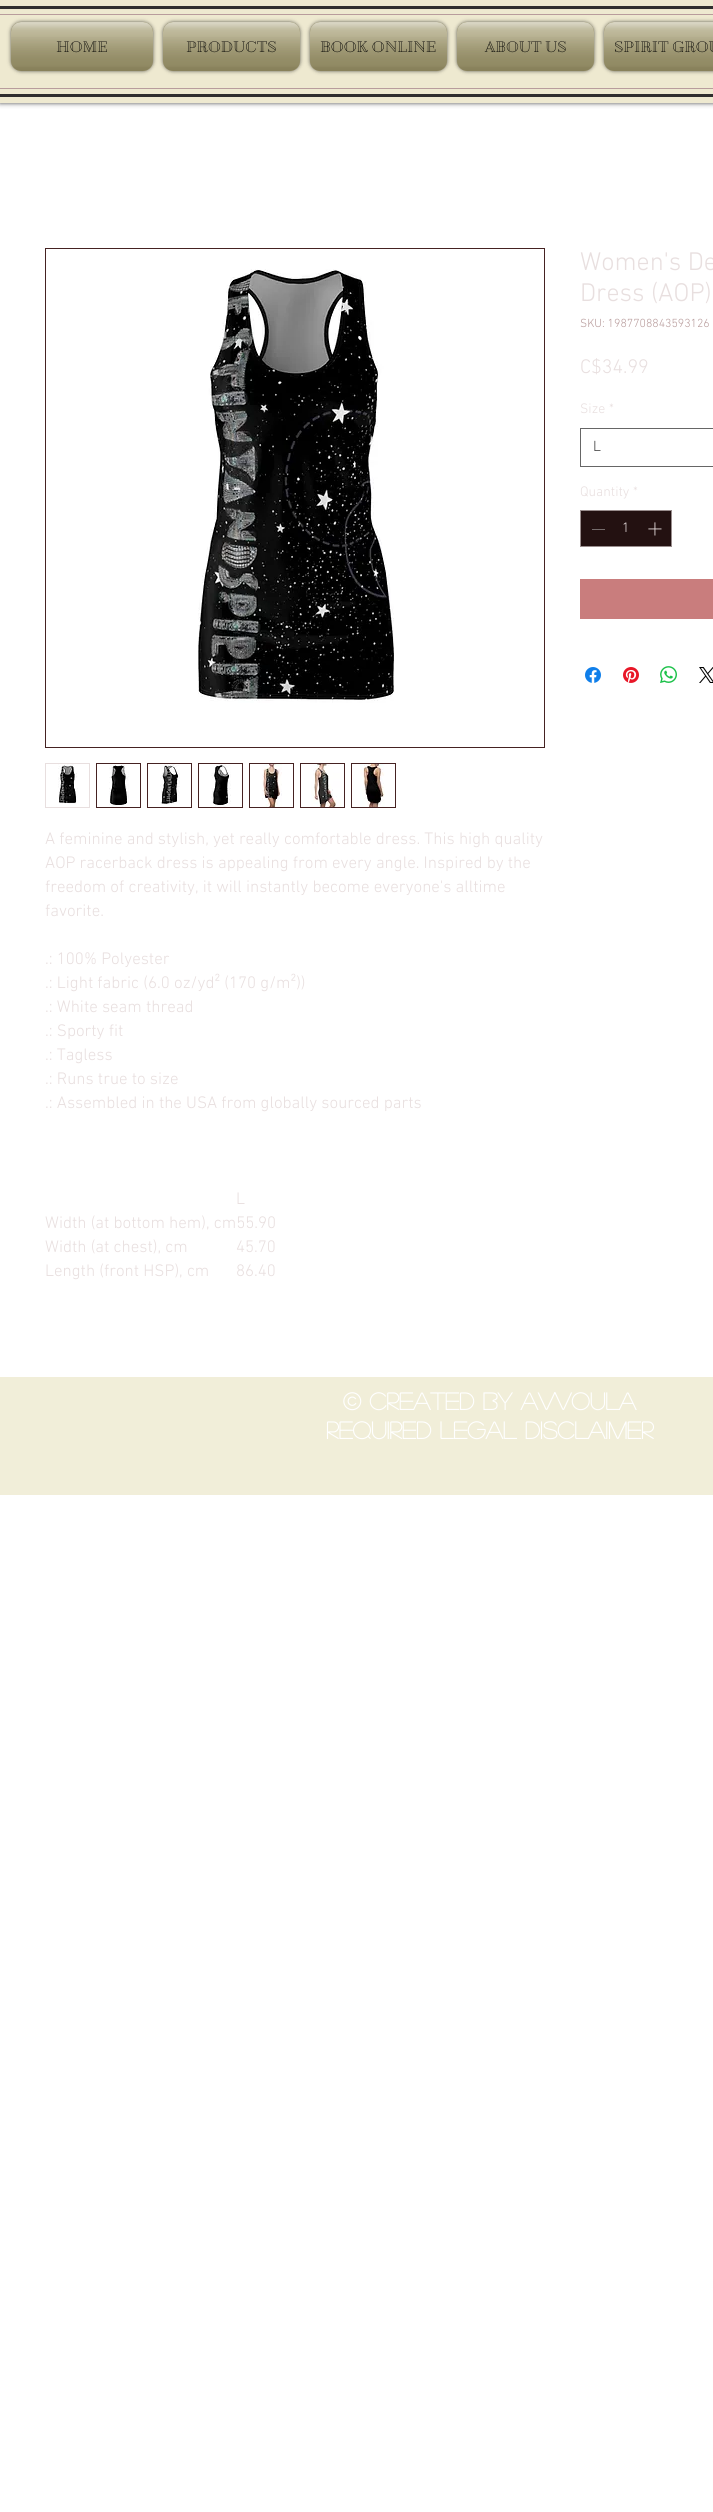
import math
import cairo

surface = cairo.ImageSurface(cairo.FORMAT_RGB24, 713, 2512)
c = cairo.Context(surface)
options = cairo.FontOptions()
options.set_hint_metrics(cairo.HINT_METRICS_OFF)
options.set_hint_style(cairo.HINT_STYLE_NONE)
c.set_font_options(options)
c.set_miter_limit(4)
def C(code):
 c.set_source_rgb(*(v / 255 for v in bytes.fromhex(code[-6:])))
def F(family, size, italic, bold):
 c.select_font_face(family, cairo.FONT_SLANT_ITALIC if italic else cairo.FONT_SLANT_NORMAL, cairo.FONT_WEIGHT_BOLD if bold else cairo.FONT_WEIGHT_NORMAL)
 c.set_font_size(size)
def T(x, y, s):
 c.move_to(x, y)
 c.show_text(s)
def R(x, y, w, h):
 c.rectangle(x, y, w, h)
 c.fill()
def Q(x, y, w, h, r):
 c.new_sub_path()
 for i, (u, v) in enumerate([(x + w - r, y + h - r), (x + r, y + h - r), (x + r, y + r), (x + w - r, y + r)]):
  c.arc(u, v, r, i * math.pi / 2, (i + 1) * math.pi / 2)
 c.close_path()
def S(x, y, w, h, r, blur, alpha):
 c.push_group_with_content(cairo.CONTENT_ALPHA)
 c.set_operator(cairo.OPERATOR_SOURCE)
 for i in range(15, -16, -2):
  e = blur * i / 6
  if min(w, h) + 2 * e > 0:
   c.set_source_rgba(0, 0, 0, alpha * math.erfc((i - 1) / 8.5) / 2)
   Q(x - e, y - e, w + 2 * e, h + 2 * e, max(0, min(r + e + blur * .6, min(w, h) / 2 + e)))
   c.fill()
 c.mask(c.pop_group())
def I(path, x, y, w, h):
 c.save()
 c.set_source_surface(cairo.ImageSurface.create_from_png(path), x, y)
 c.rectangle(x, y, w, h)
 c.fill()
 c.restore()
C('ffffff')
c.paint()
C('000000')
S(0,0,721,103,0,2.5,.7)
C('eee9d0')
R(0,0,713,103)
C('2f2e2e')
R(0,6,713,3)
R(0,94,713,3)
C('b89c9c')
R(0,14,713,1)
R(0,88,713,1)
C('000000')
S(11,22,142,49,10,2,.61)
C('9e966a')
Q(11,22,142,49,10)
c.fill()
I('1.png',11,22,142,45)
I('2.png',11,37,142,34)
F('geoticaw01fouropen',14,0,1)
C('000000')
T(56,52,'HOME')
C('000000')
S(163,22,137,49,10,2,.61)
C('9e966a')
Q(163,22,137,49,10)
c.fill()
I('3.png',163,22,137,45)
I('4.png',163,37,137,34)
C('000000')
T(186,52,'PRODUCTS')
C('000000')
S(310,22,137,49,10,2,.61)
C('9e966a')
Q(310,22,137,49,10)
c.fill()
I('3.png',310,22,137,45)
I('4.png',310,37,137,34)
C('000000')
T(320,52,'BOOK ONLINE')
C('000000')
S(457,22,137,49,10,2,.61)
C('9e966a')
Q(457,22,137,49,10)
c.fill()
I('3.png',457,22,137,45)
I('4.png',457,37,137,34)
C('000000')
T(485,52,'ABOUT US')
C('000000')
S(604,22,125,49,10,2,.61)
C('9e966a')
Q(604,22,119,49,10)
c.fill()
I('5.png',604,22,109,45)
I('6.png',604,37,109,34)
C('000000')
T(614,52,'SPIRIT GROU')
F('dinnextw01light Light',26,0,0)
C('e8dfdf')
T(580,270,'Women\'s De')
T(580,301,'Dress (AOP)')
F('dinnextw01light Light',12,0,0)
C('b89c9c')
T(580,327,'SKU: 1987708843593126')
F('dinnextw01light Light',20,0,0)
C('e8dfdf')
T(580,373,'C$34.99')
F('dinnextw01light Light',14,0,0)
T(580,413,'Size')
T(609,413,'*')
c.rectangle(580.5,428.5,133,38)
C('666666')
c.set_line_width(1)
c.stroke()
F('dinnextw01light Light',15,0,0)
C('444444')
T(593,451,'L')
F('dinnextw01light Light',14,0,0)
C('e8dfdf')
T(580,496,'Quantity')
T(633,496,'*')
C('231111')
c.rectangle(580.5,510.5,91,36)
c.fill_preserve()
C('998d8d')
c.stroke()
C('756c6c')
R(592,529,13,1)
C('e8dfdf')
T(622,532,'1')
I('7.png',648,522,14,14)
C('c97d7d')
R(580,579,133,40)
I('8.png',585,667,16,16)
I('9.png',623,667,16,16)
I('10.png',660,666,17,17)
I('11.png',699,667,14,16)
c.rectangle(45.5,248.5,499,499)
C('452222')
c.stroke()
I('12.png',198,269,196,434)
c.rectangle(45.5,763.5,44,44)
C('e8dfdf')
c.stroke()
I('13.png',58,764,20,40)
c.rectangle(96.5,763.5,44,44)
C('452222')
c.stroke()
I('14.png',109,764,20,43)
c.rectangle(147.5,763.5,44,44)
c.stroke()
I('15.png',160,764,20,40)
c.rectangle(198.5,763.5,44,44)
c.stroke()
I('16.png',211,764,20,43)
c.rectangle(249.5,763.5,44,44)
c.stroke()
I('17.png',262,764,20,43)
c.rectangle(300.5,763.5,44,44)
c.stroke()
I('18.png',311,764,30,43)
c.rectangle(351.5,763.5,44,44)
c.stroke()
I('19.png',360,764,25,43)
F('dinnextw01light Light',17,0,0)
C('e8dfdf')
T(45,844,'A feminine and stylish, yet really comfortable dress. This high quality')
T(45,868,'AOP racerback dress is appealing from every angle. Inspired by the')
T(45,892,'freedom of creativity, it will instantly become everyone\'s alltime')
T(45,916,'favorite.')
T(45,964,'.: 100% Polyester')
T(45,988,'.: Light fabric (6.0 oz/yd² (170 g/m²))')
T(45,1012,'.: White seam thread')
T(45,1036,'.: Sporty fit')
T(45,1060,'.: Tagless')
T(45,1084,'.: Runs true to size')
T(45,1108,'.: Assembled in the USA from globally sourced parts')
T(236,1204,'L')
T(45,1228,'Width (at bottom hem), cm55.90')
T(45,1252,'Width (at chest), cm')
T(236,1252,'45.70')
T(45,1276,'Length (front HSP), cm')
T(236,1276,'86.40')
C('f1eed9')
R(0,1377,713,118)
F('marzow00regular',24,0,1)
C('ffffff')
T(343,1410,'© Created by Avvoula')
T(326,1439,'REQUIRED LEGAL DISCLAIMER')
surface.write_to_png('o.png')
